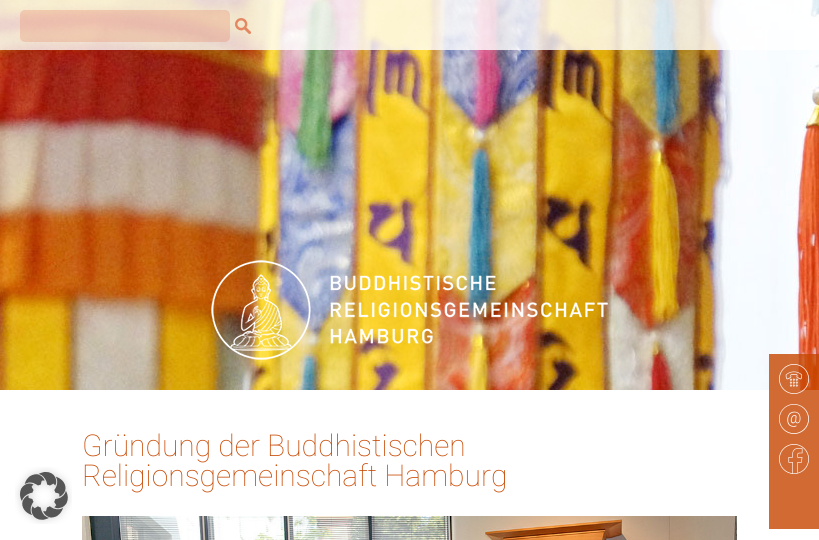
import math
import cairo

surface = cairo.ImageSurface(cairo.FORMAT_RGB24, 819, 540)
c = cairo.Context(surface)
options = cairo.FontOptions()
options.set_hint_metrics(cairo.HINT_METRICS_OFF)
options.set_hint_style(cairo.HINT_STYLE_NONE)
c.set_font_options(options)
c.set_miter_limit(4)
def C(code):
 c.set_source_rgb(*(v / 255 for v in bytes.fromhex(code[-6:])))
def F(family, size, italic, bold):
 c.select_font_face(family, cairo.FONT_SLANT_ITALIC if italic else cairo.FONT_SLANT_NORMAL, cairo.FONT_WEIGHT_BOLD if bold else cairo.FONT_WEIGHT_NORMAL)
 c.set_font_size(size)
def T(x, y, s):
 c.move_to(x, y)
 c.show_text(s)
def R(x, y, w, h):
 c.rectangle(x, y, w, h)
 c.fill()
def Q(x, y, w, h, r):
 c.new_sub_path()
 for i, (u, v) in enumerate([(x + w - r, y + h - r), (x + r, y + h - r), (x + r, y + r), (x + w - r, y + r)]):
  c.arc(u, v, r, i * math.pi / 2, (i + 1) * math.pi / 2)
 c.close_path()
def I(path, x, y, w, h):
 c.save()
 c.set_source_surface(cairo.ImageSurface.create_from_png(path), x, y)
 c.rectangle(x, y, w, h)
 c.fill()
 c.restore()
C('ffffff')
c.paint()
I('1.png',0,0,819,390)
I('2.png',211,260,397,100)
c.set_source_rgba(1,1,1,0.8)
R(0,0,819,50)
c.set_source_rgba(0.894,0.533,0.388,0.3)
Q(20,10,210,32,5)
c.fill()
I('3.png',235,18,16,16)
I('4.png',15,467,57,57)
F('Roboto Thin',30,0,0)
C('c74700')
T(82,456,'Gründung der Buddhistischen')
T(82,486,'Religionsgemeinschaft Hamburg')
I('5.png',82,516,655,24)
c.set_source_rgba(0.78,0.278,0,0.8)
R(769,354,50,175)
I('6.png',779,364,30,30)
I('7.png',779,404,30,30)
I('8.png',779,444,30,30)
surface.write_to_png('o.png')
